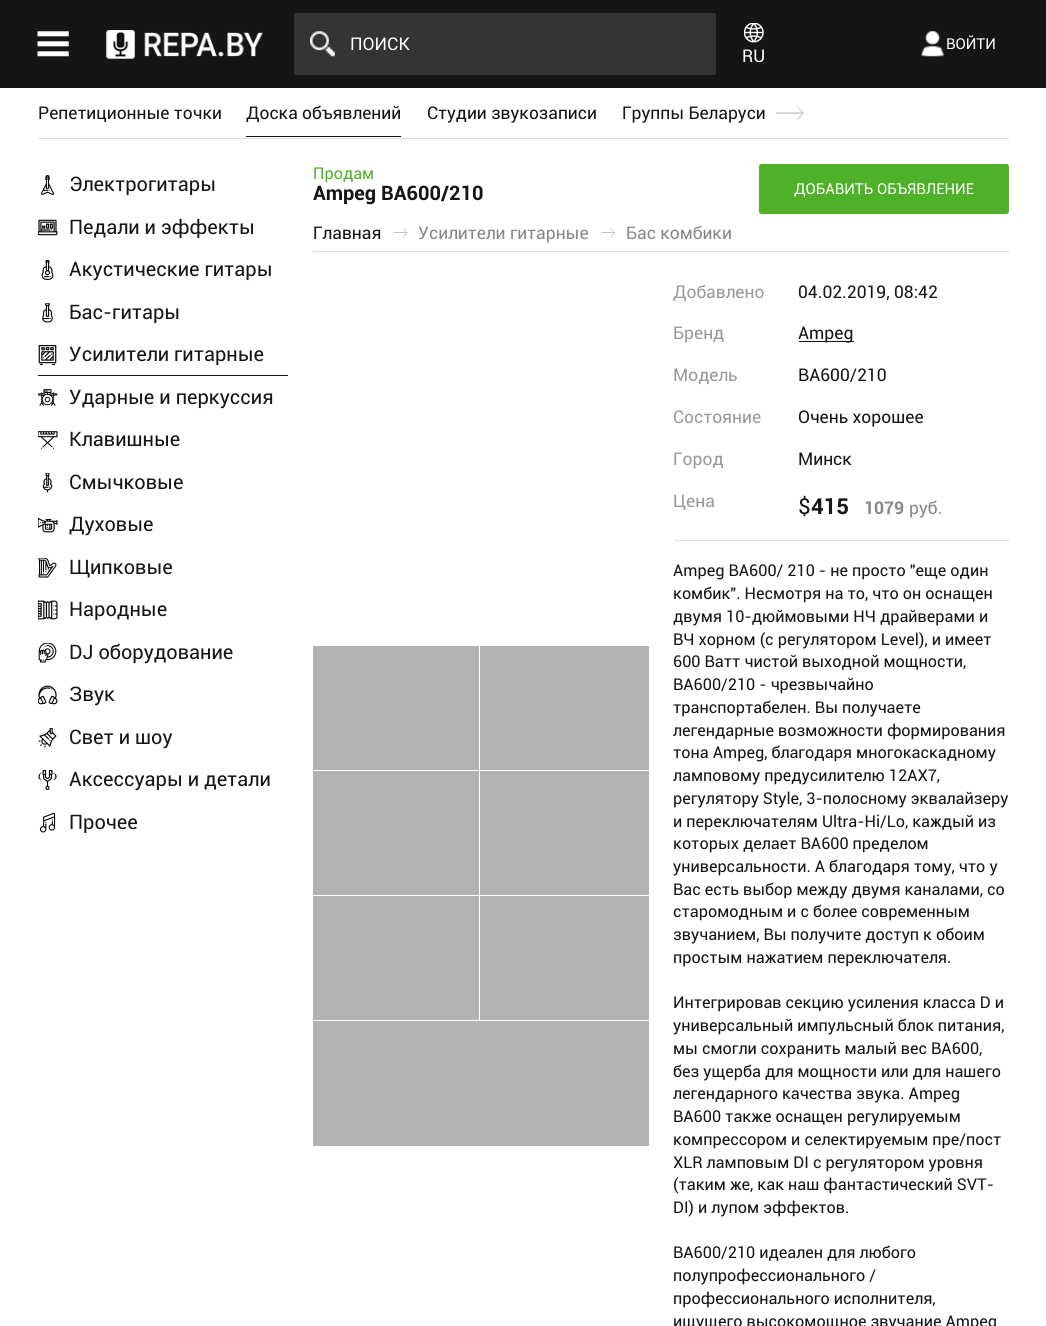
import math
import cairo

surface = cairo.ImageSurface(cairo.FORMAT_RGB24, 1046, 1326)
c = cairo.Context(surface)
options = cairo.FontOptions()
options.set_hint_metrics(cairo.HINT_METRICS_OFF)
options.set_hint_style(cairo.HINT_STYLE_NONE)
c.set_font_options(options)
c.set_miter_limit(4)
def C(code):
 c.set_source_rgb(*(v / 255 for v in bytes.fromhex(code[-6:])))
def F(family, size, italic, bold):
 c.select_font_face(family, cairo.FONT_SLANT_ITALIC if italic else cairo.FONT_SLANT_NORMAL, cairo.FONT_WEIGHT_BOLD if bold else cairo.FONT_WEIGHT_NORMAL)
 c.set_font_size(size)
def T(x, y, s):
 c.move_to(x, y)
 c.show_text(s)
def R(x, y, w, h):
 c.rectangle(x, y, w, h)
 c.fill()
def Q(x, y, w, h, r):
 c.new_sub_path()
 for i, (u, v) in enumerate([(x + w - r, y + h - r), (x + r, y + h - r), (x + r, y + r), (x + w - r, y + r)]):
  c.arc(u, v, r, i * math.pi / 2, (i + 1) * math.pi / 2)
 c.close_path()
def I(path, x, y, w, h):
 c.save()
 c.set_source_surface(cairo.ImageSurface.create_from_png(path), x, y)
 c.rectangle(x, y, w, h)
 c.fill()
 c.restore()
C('ffffff')
c.paint()
C('151515')
R(0,0,1046,88)
I('1.png',37,31,32,26)
I('2.png',106,30,157,29)
C('343434')
Q(294,13,422,62,2.5)
c.fill()
I('3.png',310,31,25,26)
F('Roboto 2',17.5,0,0)
C('ffffff')
T(350,50,'ПОИСК')
I('4.png',921,31,23,26)
F('Roboto',15,0,0)
T(946,49,'ВОЙТИ')
I('5.png',744,23,20,20)
F('Roboto',17.5,0,0)
T(742,62,'RU')
C('dddddd')
R(38,138,971,1)
C('151515')
T(38,119,'Репетиционные точки')
R(246,136,155,1)
T(246,119,'Доска объявлений')
T(427,119,'Студии звукозаписи')
T(622,119,'Группы Беларуси')
I('6.png',776,106,28,14)
I('7.png',41,175,13,20)
F('Roboto',20,0,0)
T(69,191,'Электрогитары')
I('8.png',38,219,20,17)
T(69,234,'Педали и эффекты')
I('9.png',41,260,13,20)
T(69,276,'Акустические гитары')
I('10.png',42,303,11,20)
T(69,319,'Бас-гитары')
R(38,375,250,1)
I('11.png',38,345,19,20)
T(69,361,'Усилители гитарные')
I('12.png',38,389,20,17)
T(69,404,'Ударные и перкуссия')
I('13.png',38,431,20,18)
T(69,446,'Клавишные')
I('14.png',42,473,11,20)
T(69,489,'Смычковые')
I('15.png',38,517,20,16)
T(69,531,'Духовые')
I('16.png',38,558,19,20)
T(69,574,'Щипковые')
I('17.png',38,600,20,20)
T(69,616,'Народные')
I('18.png',38,643,19,20)
T(69,659,'DJ оборудование')
I('19.png',38,685,20,20)
T(69,701,'Звук')
I('20.png',38,728,19,20)
T(69,744,'Свет и шоу')
I('21.png',38,770,19,20)
T(69,786,'Аксессуары и детали')
I('22.png',39,813,17,20)
T(69,829,'Прочее')
F('Roboto',16.25,0,0)
C('4eb127')
T(313,179,'Продам')
F('Roboto',20,0,1)
C('151515')
T(313,200,'Ampeg BA600/210')
C('4eb127')
Q(759,164,250,50,2.5)
c.fill()
F('Roboto',15,0,0)
C('ffffff')
T(794,194,'ДОБАВИТЬ ОБЪЯВЛЕНИЕ')
C('dddddd')
R(313,251,696,1)
F('Roboto',17.5,0,0)
C('151515')
T(313,239,'Главная')
I('23.png',393,227,15,11)
C('888888')
T(418,239,'Усилители гитарные')
I('24.png',601,227,14,11)
T(626,239,'Бас комбики')
C('b3b3b3')
R(313,646,166,124)
R(480,646,169,124)
R(313,771,166,124)
R(480,771,169,124)
R(313,896,166,124)
R(480,896,169,124)
R(313,1021,336,125)
C('999999')
T(673,298,'Добавлено')
C('151515')
T(798,298,'04.02.2019, 08:42')
C('999999')
T(673,339,'Бренд')
C('151515')
R(799,341,55,1)
T(798,339,'Ampeg')
C('999999')
T(673,381,'Модель')
C('151515')
T(798,381,'BA600/210')
C('999999')
T(673,423,'Состояние')
C('151515')
T(798,423,'Очень хорошее')
C('999999')
T(673,465,'Город')
C('151515')
T(798,465,'Минск')
C('999999')
T(673,507,'Цена')
F('Roboto',22,0,0)
C('151515')
T(798,514,'$')
F('Roboto',22,0,1)
T(811,514,'415')
F('Roboto',17.5,0,1)
C('888888')
T(864,514,'1079')
F('Roboto',17.5,0,0)
T(909,514,'руб.')
C('dddddd')
R(674,540,335,1)
F('Roboto',16.25,0,0)
C('151515')
T(673,576,'Ampeg BA600/ 210 - не просто "еще один')
T(673,599,'комбик". Несмотря на то, что он оснащен')
T(673,622,'двумя 10-дюймовыми НЧ драйверами и')
T(673,645,'ВЧ хорном (с регулятором Level), и имеет')
T(673,667,'600 Ватт чистой выходной мощности,')
T(673,690,'BA600/210 - чрезвычайно')
T(673,713,'транспортабелен. Вы получаете')
T(673,736,'легендарные возможности формирования')
T(673,758,'тона Ampeg, благодаря многокаскадному')
T(673,781,'ламповому предусилителю 12AX7,')
T(673,804,'регулятору Style, 3-полосному эквалайзеру')
T(673,827,'и переключателям Ultra-Hi/Lo, каждый из')
T(673,849,'которых делает BA600 пределом')
T(673,872,'универсальности. А благодаря тому, что у')
T(673,895,'Вас есть выбор между двумя каналами, со')
T(673,917,'старомодным и с более современным')
T(673,940,'звучанием, Вы получите доступ к обоим')
T(673,963,'простым нажатием переключателя.')
T(673,1008,'Интегрировав секцию усиления класса D и')
T(673,1031,'универсальный импульсный блок питания,')
T(673,1054,'мы смогли сохранить малый вес BA600,')
T(673,1077,'без ущерба для мощности или для нашего')
T(673,1099,'легендарного качества звука. Ampeg')
T(673,1122,'BA600 также оснащен регулируемым')
T(673,1145,'компрессором и селектируемым пре/пост')
T(673,1168,'XLR ламповым DI с регулятором уровня')
T(673,1190,'(таким же, как наш фантастический SVT-')
T(673,1213,'DI) и лупом эффектов.')
T(673,1258,'BA600/210 идеален для любого')
T(673,1281,'полупрофессионального /')
T(673,1304,'профессионального исполнителя,')
T(673,1327,'ищущего высокомощное звучание Ampeg')
surface.write_to_png('o.png')
